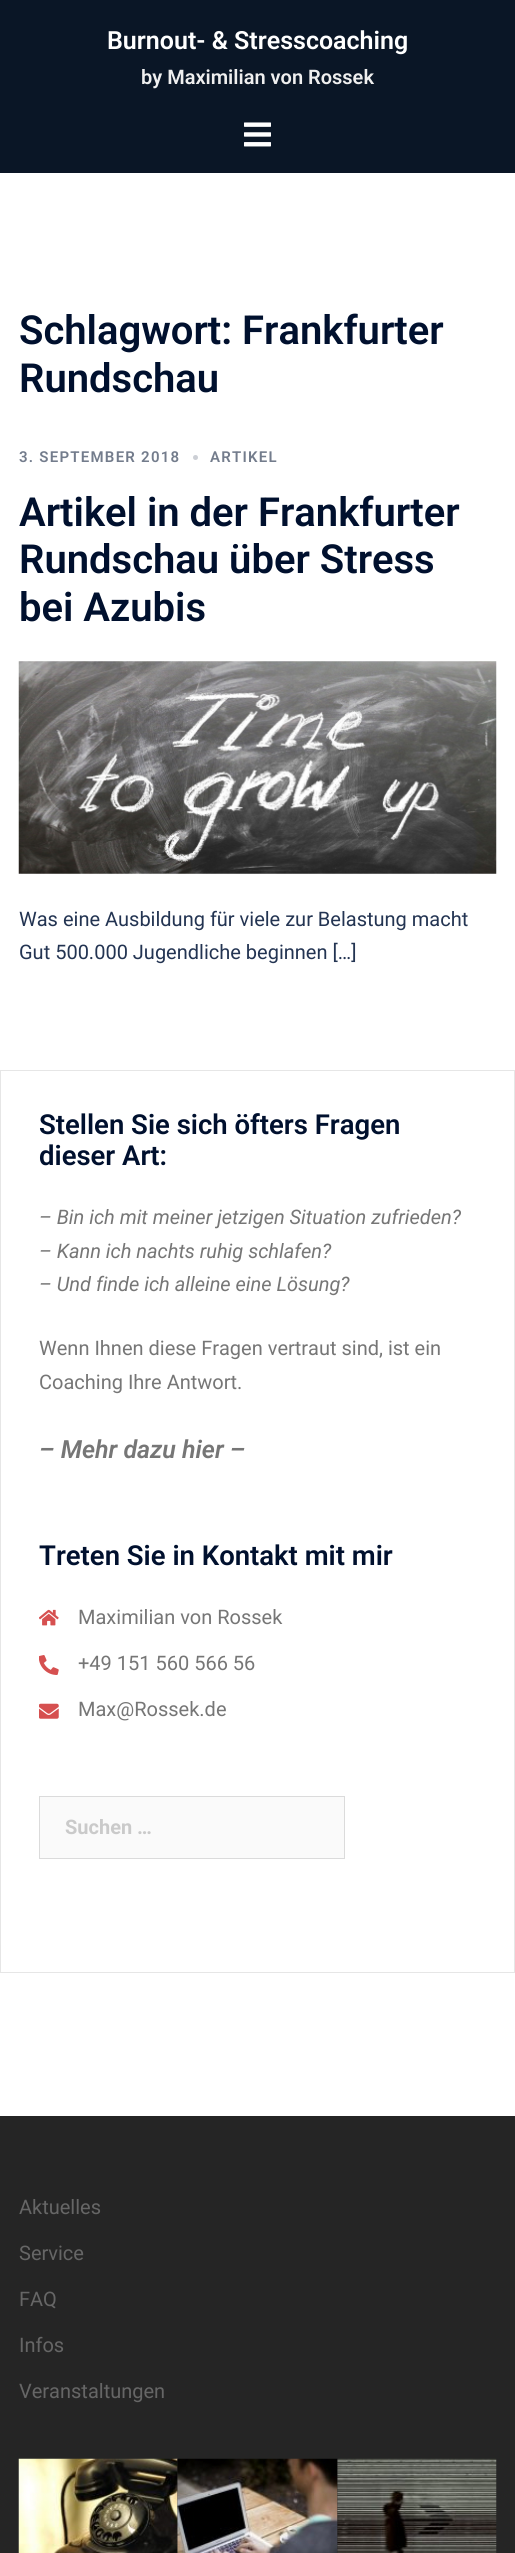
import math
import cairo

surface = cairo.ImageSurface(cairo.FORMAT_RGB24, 515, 2553)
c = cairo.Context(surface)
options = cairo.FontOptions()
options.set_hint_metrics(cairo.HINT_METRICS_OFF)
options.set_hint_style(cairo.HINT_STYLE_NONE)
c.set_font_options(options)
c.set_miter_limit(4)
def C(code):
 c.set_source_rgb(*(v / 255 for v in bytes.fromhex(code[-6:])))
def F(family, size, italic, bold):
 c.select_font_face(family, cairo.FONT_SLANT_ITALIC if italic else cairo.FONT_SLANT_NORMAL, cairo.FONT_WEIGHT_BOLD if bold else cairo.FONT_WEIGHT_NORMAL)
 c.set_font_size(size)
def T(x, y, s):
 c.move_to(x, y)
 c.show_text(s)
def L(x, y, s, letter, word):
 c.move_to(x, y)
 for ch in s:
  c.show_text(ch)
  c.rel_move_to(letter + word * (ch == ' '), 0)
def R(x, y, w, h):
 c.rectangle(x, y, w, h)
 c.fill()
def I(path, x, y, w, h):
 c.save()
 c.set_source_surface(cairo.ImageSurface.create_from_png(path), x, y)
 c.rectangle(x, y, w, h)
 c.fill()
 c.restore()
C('ffffff')
c.paint()
C('0a1626')
R(0,0,515,173)
F('Roboto SemiBold',25,0,0)
C('ffffff')
T(107,49,'Burnout- & Stresscoaching')
F('Roboto SemiBold',20,0,0)
C('efefef')
T(141,84,'by Maximilian von Rossek')
I('1.png',244,122,27,25)
F('Roboto SemiBold',40,0,0)
C('00102e')
T(19,344,'Schlagwort: Frankfurter')
T(19,392,'Rundschau')
F('Roboto SemiBold',15,0,0)
C('737c8c')
L(19,462,'3. SEPTEMBER 2018',1.25,0)
C('cccfd5')
c.new_path()
c.arc(195.5,457.5,2.5,0,2 * math.pi)
c.fill()
C('737c8c')
L(210,462,'ARTIKEL',1.25,0)
F('Roboto SemiBold',40,0,0)
C('00102e')
T(19,526,'Artikel in der Frankfurter')
T(19,573,'Rundschau über Stress')
T(19,621,'bei Azubis')
I('2.png',18,661,479,213)
F('Roboto',20,0,0)
C('233452')
T(19,926,'Was eine Ausbildung für viele zur Belastung macht')
T(19,959,'Gut 500.000 Jugendliche beginnen […]')
c.rectangle(.5,1070.5,514,902)
C('e6e6e6')
c.set_line_width(1)
c.stroke()
F('Roboto SemiBold',27.5,0,0)
C('00102e')
T(39,1134,'Stellen Sie sich öfters Fragen')
T(39,1165,'dieser Art:')
F('Roboto',20,1,0)
C('767676')
T(39,1224,'– Bin ich mit meiner jetzigen Situation zufrieden?')
T(39,1258,'– Kann ich nachts ruhig schlafen?')
T(39,1291,'– Und finde ich alleine eine Lösung?')
F('Roboto',20,0,0)
T(39,1355,'Wenn Ihnen diese Fragen vertraut sind, ist ein')
T(39,1389,'Coaching Ihre Antwort.')
F('Roboto SemiBold',25,1,0)
T(39,1458,'– Mehr dazu hier –')
F('Roboto SemiBold',27.5,0,0)
C('00102e')
T(39,1565,'Treten Sie in Kontakt mit mir')
I('3.png',39,1609,20,17)
F('Roboto',20,0,0)
C('767676')
T(78,1624,'Maximilian von Rossek')
I('4.png',39,1655,20,20)
T(78,1670,'+49 151 560 566 56')
I('5.png',39,1703,20,16)
T(78,1716,'Max@Rossek.de')
C('fafafa')
c.rectangle(39.5,1796.5,305,62)
c.fill_preserve()
C('dbdbdb')
c.stroke()
F('Roboto',20,0,1)
C('cacaca')
T(65,1834,'Suchen …')
C('252525')
R(0,2116,515,437)
F('Roboto',20,0,0)
C('666666')
T(19,2214,'Aktuelles')
T(19,2260,'Service')
T(19,2306,'FAQ')
T(19,2352,'Infos')
T(19,2398,'Veranstaltungen')
I('6.png',18,2458,160,95)
I('7.png',177,2458,161,95)
I('8.png',337,2458,160,95)
surface.write_to_png('o.png')
